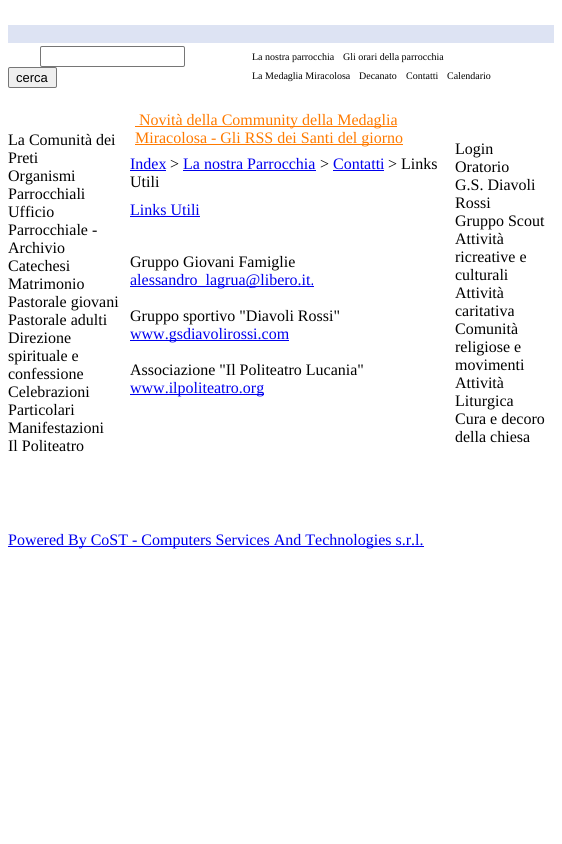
import math
import cairo

surface = cairo.ImageSurface(cairo.FORMAT_RGB24, 562, 844)
c = cairo.Context(surface)
options = cairo.FontOptions()
options.set_hint_metrics(cairo.HINT_METRICS_OFF)
options.set_hint_style(cairo.HINT_STYLE_NONE)
c.set_font_options(options)
c.set_miter_limit(4)
def C(code):
 c.set_source_rgb(*(v / 255 for v in bytes.fromhex(code[-6:])))
def F(family, size, italic, bold):
 c.select_font_face(family, cairo.FONT_SLANT_ITALIC if italic else cairo.FONT_SLANT_NORMAL, cairo.FONT_WEIGHT_BOLD if bold else cairo.FONT_WEIGHT_NORMAL)
 c.set_font_size(size)
def T(x, y, s):
 c.move_to(x, y)
 c.show_text(s)
def R(x, y, w, h):
 c.rectangle(x, y, w, h)
 c.fill()
def Q(x, y, w, h, r):
 c.new_sub_path()
 for i, (u, v) in enumerate([(x + w - r, y + h - r), (x + r, y + h - r), (x + r, y + r), (x + w - r, y + r)]):
  c.arc(u, v, r, i * math.pi / 2, (i + 1) * math.pi / 2)
 c.close_path()
C('ffffff')
c.paint()
C('dde3f3')
R(8,25,546,18)
Q(40.5,46.5,144,20,1.5)
C('767676')
c.set_line_width(1)
c.stroke()
C('efefef')
Q(8.5,67.5,48,20,1.5)
c.fill_preserve()
C('767676')
c.stroke()
F('Liberation Sans',13,0,0)
C('000000')
T(16,82,'cerca')
F('Liberation Serif',10,0,0)
T(252,60,'La nostra parrocchia')
T(343,60,'Gli orari della parrocchia')
T(252,79,'La Medaglia Miracolosa')
T(359,79,'Decanato')
T(406,79,'Contatti')
T(447,79,'Calendario')
F('Liberation Serif',16,0,0)
T(8,145,'La Comunità dei')
T(8,163,'Preti')
T(8,181,'Organismi')
T(8,199,'Parrocchiali')
T(8,217,'Ufficio')
T(8,235,'Parrocchiale -')
T(8,253,'Archivio')
T(8,271,'Catechesi')
T(8,289,'Matrimonio')
T(8,307,'Pastorale giovani')
T(8,325,'Pastorale adulti')
T(8,343,'Direzione')
T(8,361,'spirituale e')
T(8,379,'confessione')
T(8,397,'Celebrazioni')
T(8,415,'Particolari')
T(8,433,'Manifestazioni')
T(8,451,'Il Politeatro')
C('ff7a00')
R(135,126,262,1)
T(139,125,'Novità della Community della Medaglia')
R(135,144,268,1)
T(135,143,'Miracolosa - Gli RSS dei Santi del giorno')
C('0000ee')
T(130,169,'Index')
R(130,170,36,1)
C('000000')
T(170,169,'>')
C('0000ee')
T(183,169,'La nostra Parrocchia')
R(183,170,133,1)
C('000000')
T(320,169,'>')
C('0000ee')
T(333,169,'Contatti')
R(333,170,51,1)
C('000000')
T(388,169,'> Links')
T(130,187,'Utili')
C('0000ee')
T(130,215,'Links Utili')
R(130,216,70,1)
C('000000')
T(130,267,'Gruppo Giovani Famiglie')
C('0000ee')
R(130,286,184,1)
T(130,285,'alessandro_lagrua@libero.it.')
C('000000')
T(130,321,'Gruppo sportivo "Diavoli Rossi"')
C('0000ee')
R(130,340,159,1)
T(130,339,'www.gsdiavolirossi.com')
C('000000')
T(130,375,'Associazione "Il Politeatro Lucania"')
C('0000ee')
R(130,394,134,1)
T(130,393,'www.ilpoliteatro.org')
C('000000')
T(455,154,'Login')
T(455,172,'Oratorio')
T(455,190,'G.S. Diavoli')
T(455,208,'Rossi')
T(455,226,'Gruppo Scout')
T(455,244,'Attività')
T(455,262,'ricreative e')
T(455,280,'culturali')
T(455,298,'Attività')
T(455,316,'caritativa')
T(455,334,'Comunità')
T(455,352,'religiose e')
T(455,370,'movimenti')
T(455,388,'Attività')
T(455,406,'Liturgica')
T(455,424,'Cura e decoro')
T(455,442,'della chiesa')
C('0000ee')
R(8,546,416,1)
T(8,545,'Powered By CoST - Computers Services And Technologies s.r.l.')
surface.write_to_png('o.png')
